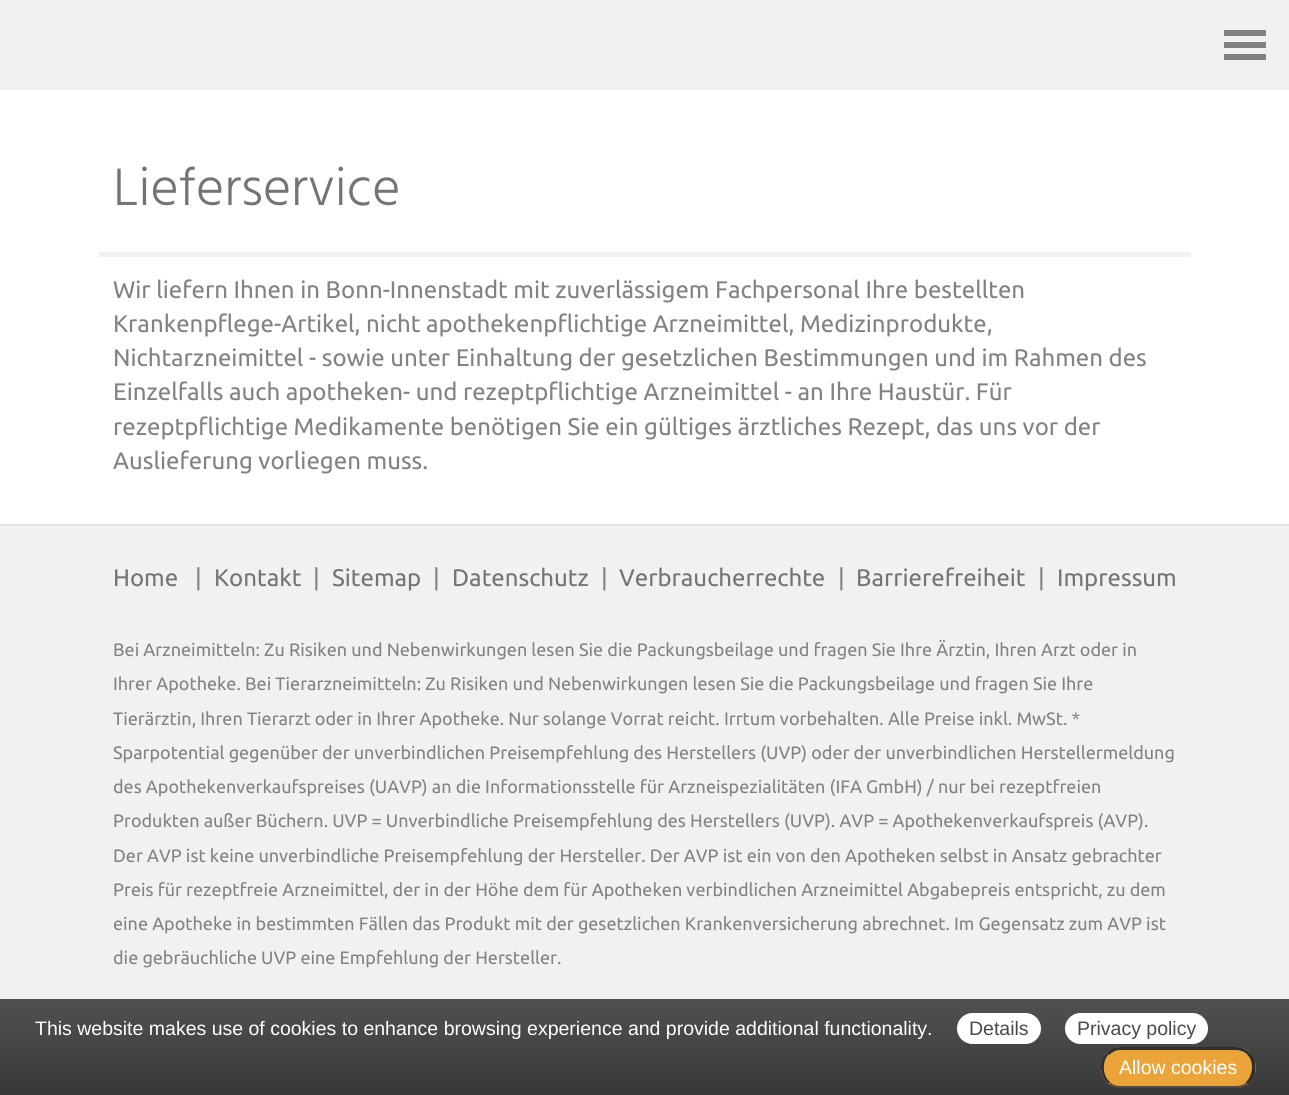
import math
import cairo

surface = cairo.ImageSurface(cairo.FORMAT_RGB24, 1289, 1095)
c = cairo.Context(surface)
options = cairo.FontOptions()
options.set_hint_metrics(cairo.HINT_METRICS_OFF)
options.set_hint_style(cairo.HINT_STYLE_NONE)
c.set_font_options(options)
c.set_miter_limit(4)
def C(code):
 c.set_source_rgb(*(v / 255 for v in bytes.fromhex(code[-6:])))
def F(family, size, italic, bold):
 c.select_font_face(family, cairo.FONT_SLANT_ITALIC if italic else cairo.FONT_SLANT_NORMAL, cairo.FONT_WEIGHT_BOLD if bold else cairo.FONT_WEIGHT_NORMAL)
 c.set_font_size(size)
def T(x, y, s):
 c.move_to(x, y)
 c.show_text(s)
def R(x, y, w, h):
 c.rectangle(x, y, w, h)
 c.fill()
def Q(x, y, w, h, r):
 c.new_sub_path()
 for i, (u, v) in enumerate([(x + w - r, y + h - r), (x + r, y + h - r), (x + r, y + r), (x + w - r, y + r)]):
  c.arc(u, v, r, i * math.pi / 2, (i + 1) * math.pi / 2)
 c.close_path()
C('ffffff')
c.paint()
C('f1f1f1')
R(0,0,1289,90)
C('828282')
R(1224,30,42,6)
R(1224,42,42,6)
R(1224,54,42,6)
C('f1f1f1')
R(99,252,1092,5)
F('Hind Light',54,0,0)
C('747474')
T(113,205,'Lieferservice')
F('Ubuntu',24,0,0)
C('828282')
T(113,298,'Wir liefern Ihnen in Bonn-Innenstadt mit zuverlässigem Fachpersonal Ihre bestellten')
T(113,332,'Krankenpflege-Artikel, nicht apothekenpflichtige Arzneimittel, Medizinprodukte,')
T(113,366,'Nichtarzneimittel - sowie unter Einhaltung der gesetzlichen Bestimmungen und im Rahmen des')
T(113,400,'Einzelfalls auch apotheken- und rezeptpflichtige Arzneimittel - an Ihre Haustür. Für')
T(113,435,'rezeptpflichtige Medikamente benötigen Sie ein gültiges ärztliches Rezept, das uns vor der')
T(113,469,'Auslieferung vorliegen muss.')
C('f1f1f1')
R(0,526,1289,482)
C('e3e3e3')
R(0,524,1289,2)
C('747474')
T(113,586,'Home')
C('828282')
T(195,586,'|')
C('747474')
T(214,586,'Kontakt')
C('828282')
T(313,586,'|')
C('747474')
T(332,586,'Sitemap')
C('828282')
T(433,586,'|')
C('747474')
T(452,586,'Datenschutz')
C('828282')
T(601,586,'|')
C('747474')
T(619,586,'Verbraucherrechte')
C('828282')
T(838,586,'|')
C('747474')
T(856,586,'Barrierefreiheit')
C('828282')
T(1038,586,'|')
C('747474')
T(1057,586,'Impressum')
F('Ubuntu',18,0,0)
C('828282')
T(113,656,'Bei Arzneimitteln: Zu Risiken und Nebenwirkungen lesen Sie die Packungsbeilage und fragen Sie Ihre Ärztin, Ihren Arzt oder in')
T(113,690,'Ihrer Apotheke. Bei Tierarzneimitteln: Zu Risiken und Nebenwirkungen lesen Sie die Packungsbeilage und fragen Sie Ihre')
T(113,725,'Tierärztin, Ihren Tierarzt oder in Ihrer Apotheke. Nur solange Vorrat reicht. Irrtum vorbehalten. Alle Preise inkl. MwSt. *')
T(113,759,'Sparpotential gegenüber der unverbindlichen Preisempfehlung des Herstellers (UVP) oder der unverbindlichen Herstellermeldung')
T(113,793,'des Apothekenverkaufspreises (UAVP) an die Informationsstelle für Arzneispezialitäten (IFA GmbH) / nur bei rezeptfreien')
T(113,827,'Produkten außer Büchern. UVP = Unverbindliche Preisempfehlung des Herstellers (UVP). AVP = Apothekenverkaufspreis (AVP).')
T(113,862,'Der AVP ist keine unverbindliche Preisempfehlung der Hersteller. Der AVP ist ein von den Apotheken selbst in Ansatz gebrachter')
T(113,896,'Preis für rezeptfreie Arzneimittel, der in der Höhe dem für Apotheken verbindlichen Arzneimittel Abgabepreis entspricht, zu dem')
T(113,930,'eine Apotheke in bestimmten Fällen das Produkt mit der gesetzlichen Krankenversicherung abrechnet. Im Gegensatz zum AVP ist')
T(113,964,'die gebräuchliche UVP eine Empfehlung der Hersteller.')
gradient = cairo.LinearGradient(645,999,645,1095)
gradient.add_color_stop_rgba(0,0.278,0.278,0.278,.95)
gradient.add_color_stop_rgba(1,0.18,0.18,0.18,.95)
c.set_source(gradient)
R(0,999,1289,96)
F('Liberation Sans',19.5,0,0)
C('ffffff')
T(35,1035,'This website makes use of cookies to enhance browsing experience and provide additional functionality.')
Q(957,1013,84,31,15.5)
c.fill()
C('4a4a4a')
T(969,1035,'Details')
C('ffffff')
Q(1065,1013,143,31,15.5)
c.fill()
C('4a4a4a')
T(1077,1035,'Privacy policy')
C('eba43a')
Q(1101,1047,155,41,20)
c.fill()
C('2e2e2e')
c.new_path()
c.move_to(1120,1047)
c.curve_to(1115,1047,1110,1049,1107,1053)
c.line_to(1109,1055)
c.curve_to(1112,1052,1116,1050,1120,1050)
c.line_to(1236,1050)
c.curve_to(1241,1050,1245,1052,1248,1055)
c.line_to(1250,1053)
c.curve_to(1246,1049,1241,1047,1236,1047)
c.close_path()
c.fill()
c.new_path()
c.move_to(1255.5,1072.5)
c.curve_to(1254.5,1077,1252,1081,1248,1084)
c.line_to(1245.5,1082.5)
c.curve_to(1253,1076,1254.5,1062,1247.5,1055)
c.line_to(1250,1052.5)
c.curve_to(1252.5,1055,1254.5,1058.5,1255.5,1062)
c.close_path()
c.fill()
C('4a4a4a')
c.new_path()
c.move_to(1116,1088)
c.curve_to(1113,1087,1111,1086,1109,1084)
c.line_to(1111,1083)
c.curve_to(1113,1085,1116,1086,1120,1086)
c.line_to(1236,1086)
c.curve_to(1240,1086,1243,1085,1246,1083)
c.line_to(1248,1084)
c.curve_to(1246,1086,1243,1087,1240,1088)
c.close_path()
c.fill()
C('2e2e2e')
c.new_path()
c.move_to(1101,1066)
c.curve_to(1101,1073,1103,1079,1108.5,1083.5)
c.line_to(1110.5,1082.5)
c.curve_to(1102.5,1076.5,1101.5,1062,1108.5,1054.5)
c.line_to(1107,1053)
c.curve_to(1103,1056,1101,1061,1101,1066)
c.close_path()
c.fill()
C('ffffff')
T(1119,1074,'Allow cookies')
surface.write_to_png('o.png')
